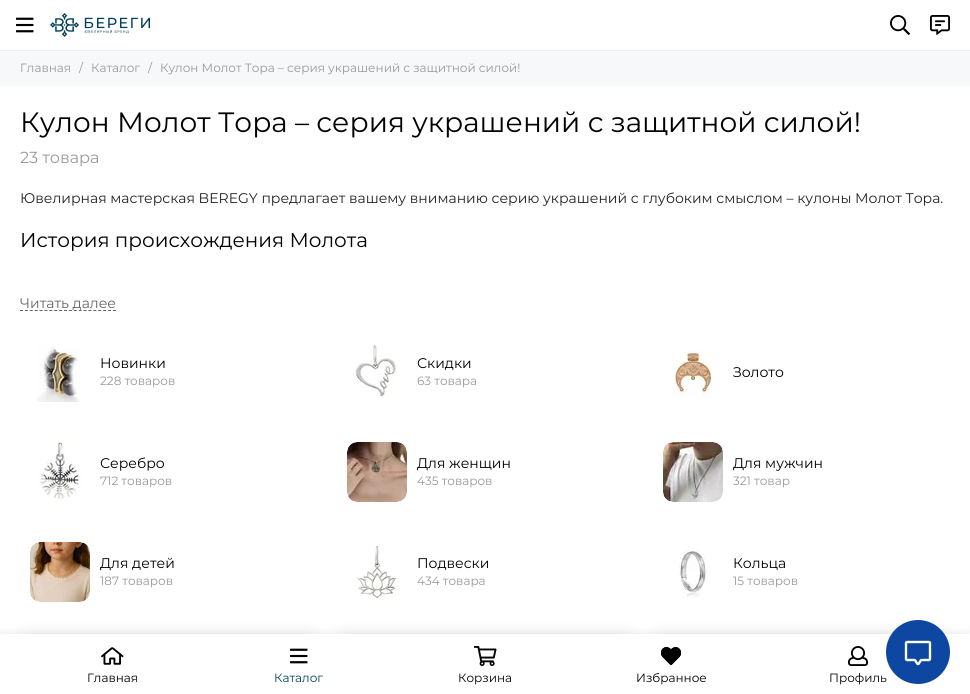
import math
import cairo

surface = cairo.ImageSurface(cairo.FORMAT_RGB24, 970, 694)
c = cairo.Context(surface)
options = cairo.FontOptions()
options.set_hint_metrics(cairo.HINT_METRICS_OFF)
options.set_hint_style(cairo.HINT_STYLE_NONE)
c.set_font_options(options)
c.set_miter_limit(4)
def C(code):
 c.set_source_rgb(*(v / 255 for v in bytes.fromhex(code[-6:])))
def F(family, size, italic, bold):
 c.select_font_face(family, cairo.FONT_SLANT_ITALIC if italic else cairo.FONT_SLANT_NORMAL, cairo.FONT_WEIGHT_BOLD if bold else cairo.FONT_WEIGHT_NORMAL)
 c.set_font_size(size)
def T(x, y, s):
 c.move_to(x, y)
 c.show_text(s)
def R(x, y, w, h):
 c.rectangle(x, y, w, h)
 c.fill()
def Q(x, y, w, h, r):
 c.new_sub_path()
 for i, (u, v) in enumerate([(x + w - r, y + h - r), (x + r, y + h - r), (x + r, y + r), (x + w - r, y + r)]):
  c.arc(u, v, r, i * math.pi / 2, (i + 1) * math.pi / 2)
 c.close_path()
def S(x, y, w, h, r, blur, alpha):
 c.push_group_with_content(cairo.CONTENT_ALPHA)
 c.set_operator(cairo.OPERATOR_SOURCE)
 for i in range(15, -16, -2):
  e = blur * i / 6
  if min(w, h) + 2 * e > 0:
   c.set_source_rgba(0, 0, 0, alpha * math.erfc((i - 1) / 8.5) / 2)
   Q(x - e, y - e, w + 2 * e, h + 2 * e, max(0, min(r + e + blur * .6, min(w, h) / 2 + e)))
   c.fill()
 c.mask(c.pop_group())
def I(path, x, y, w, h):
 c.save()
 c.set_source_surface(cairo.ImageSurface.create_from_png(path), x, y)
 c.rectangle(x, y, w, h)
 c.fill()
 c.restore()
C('ffffff')
c.paint()
C('eeeeee')
R(0,50,970,1)
I('1.png',16,17,18,16)
I('2.png',50,13,100,24)
I('3.png',890,15,20,20)
I('4.png',930,15,20,20)
C('f7f8fa')
R(0,51,970,35)
F('Montserrat',12,0,0)
C('999999')
T(20,72,'Главная')
T(79,72,'/')
T(91,72,'Каталог')
T(148,72,'/')
T(160,72,'Кулон Молот Тора – серия украшений с защитной силой!')
F('Montserrat',28,0,0)
C('000000')
T(20,132,'Кулон Молот Тора – серия украшений с защитной силой!')
F('Montserrat',16,0,0)
C('999999')
T(20,163,'23 товара')
F('Montserrat',14,0,0)
C('222222')
T(20,203,'Ювелирная мастерская BEREGY предлагает вашему вниманию серию украшений с глубоким смыслом – кулоны Молот Тора.')
F('Montserrat',20,0,0)
C('000000')
T(20,247,'История происхождения Молота')
c.new_path()
c.move_to(20,310.5)
c.line_to(116,310.5)
C('666666')
c.set_line_width(1)
c.set_dash([3,1.89])
c.stroke()
F('Montserrat',14,0,0)
T(20,308,'Читать далее')
I('5.png',36,346,44,56)
C('000000')
T(100,368,'Новинки')
F('Montserrat',12,0,0)
C('999999')
T(100,385,'228 товаров')
I('6.png',355,345,43,52)
F('Montserrat',14,0,0)
C('000000')
T(417,368,'Скидки')
F('Montserrat',12,0,0)
C('999999')
T(417,385,'63 товара')
I('7.png',673,350,39,48)
F('Montserrat',14,0,0)
C('000000')
T(733,377,'Золото')
I('8.png',38,442,44,60)
T(100,468,'Серебро')
F('Montserrat',12,0,0)
C('999999')
T(100,485,'712 товаров')
I('9.png',347,442,60,60)
c.save()
c.rectangle(417,455,94,16)
c.clip()
F('Montserrat',14,0,0)
C('000000')
T(417,468,'Для женщин')
c.restore()
T(417,485,'435 товаров')
I('10.png',663,442,60,60)
F('Montserrat',14,0,0)
C('000000')
T(733,468,'Для мужчин')
F('Montserrat',12,0,0)
C('999999')
T(733,485,'321 товар')
I('11.png',30,542,60,60)
F('Montserrat',14,0,0)
C('000000')
T(100,568,'Для детей')
F('Montserrat',12,0,0)
C('999999')
T(100,585,'187 товаров')
I('12.png',355,546,44,52)
F('Montserrat',14,0,0)
C('000000')
T(417,568,'Подвески')
F('Montserrat',12,0,0)
C('999999')
T(417,585,'434 товара')
I('13.png',679,550,28,48)
F('Montserrat',14,0,0)
C('000000')
T(733,568,'Кольца')
F('Montserrat',12,0,0)
C('999999')
T(733,585,'15 товаров')
C('000000')
S(20,632,297,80,10,7.5,.05)
S(337,632,296,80,10,7.5,.05)
S(653,632,297,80,10,7.5,.05)
S(0,639,970,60,0,7.5,.2)
C('ffffff')
R(0,634,970,60)
I('14.png',101,647,23,18)
C('000000')
T(87,682,'Главная')
I('1.png',290,648,18,16)
C('00405b')
T(274,682,'Каталог')
I('15.png',474,646,23,20)
C('000000')
T(458,682,'Корзина')
I('16.png',661,647,20,18)
T(636,682,'Избранное')
I('17.png',848,646,20,20)
T(829,682,'Профиль')
C('0d47a1')
c.new_path()
c.arc(918,652,32,0,2 * math.pi)
c.fill()
I('18.png',904,640,28,26)
surface.write_to_png('o.png')
